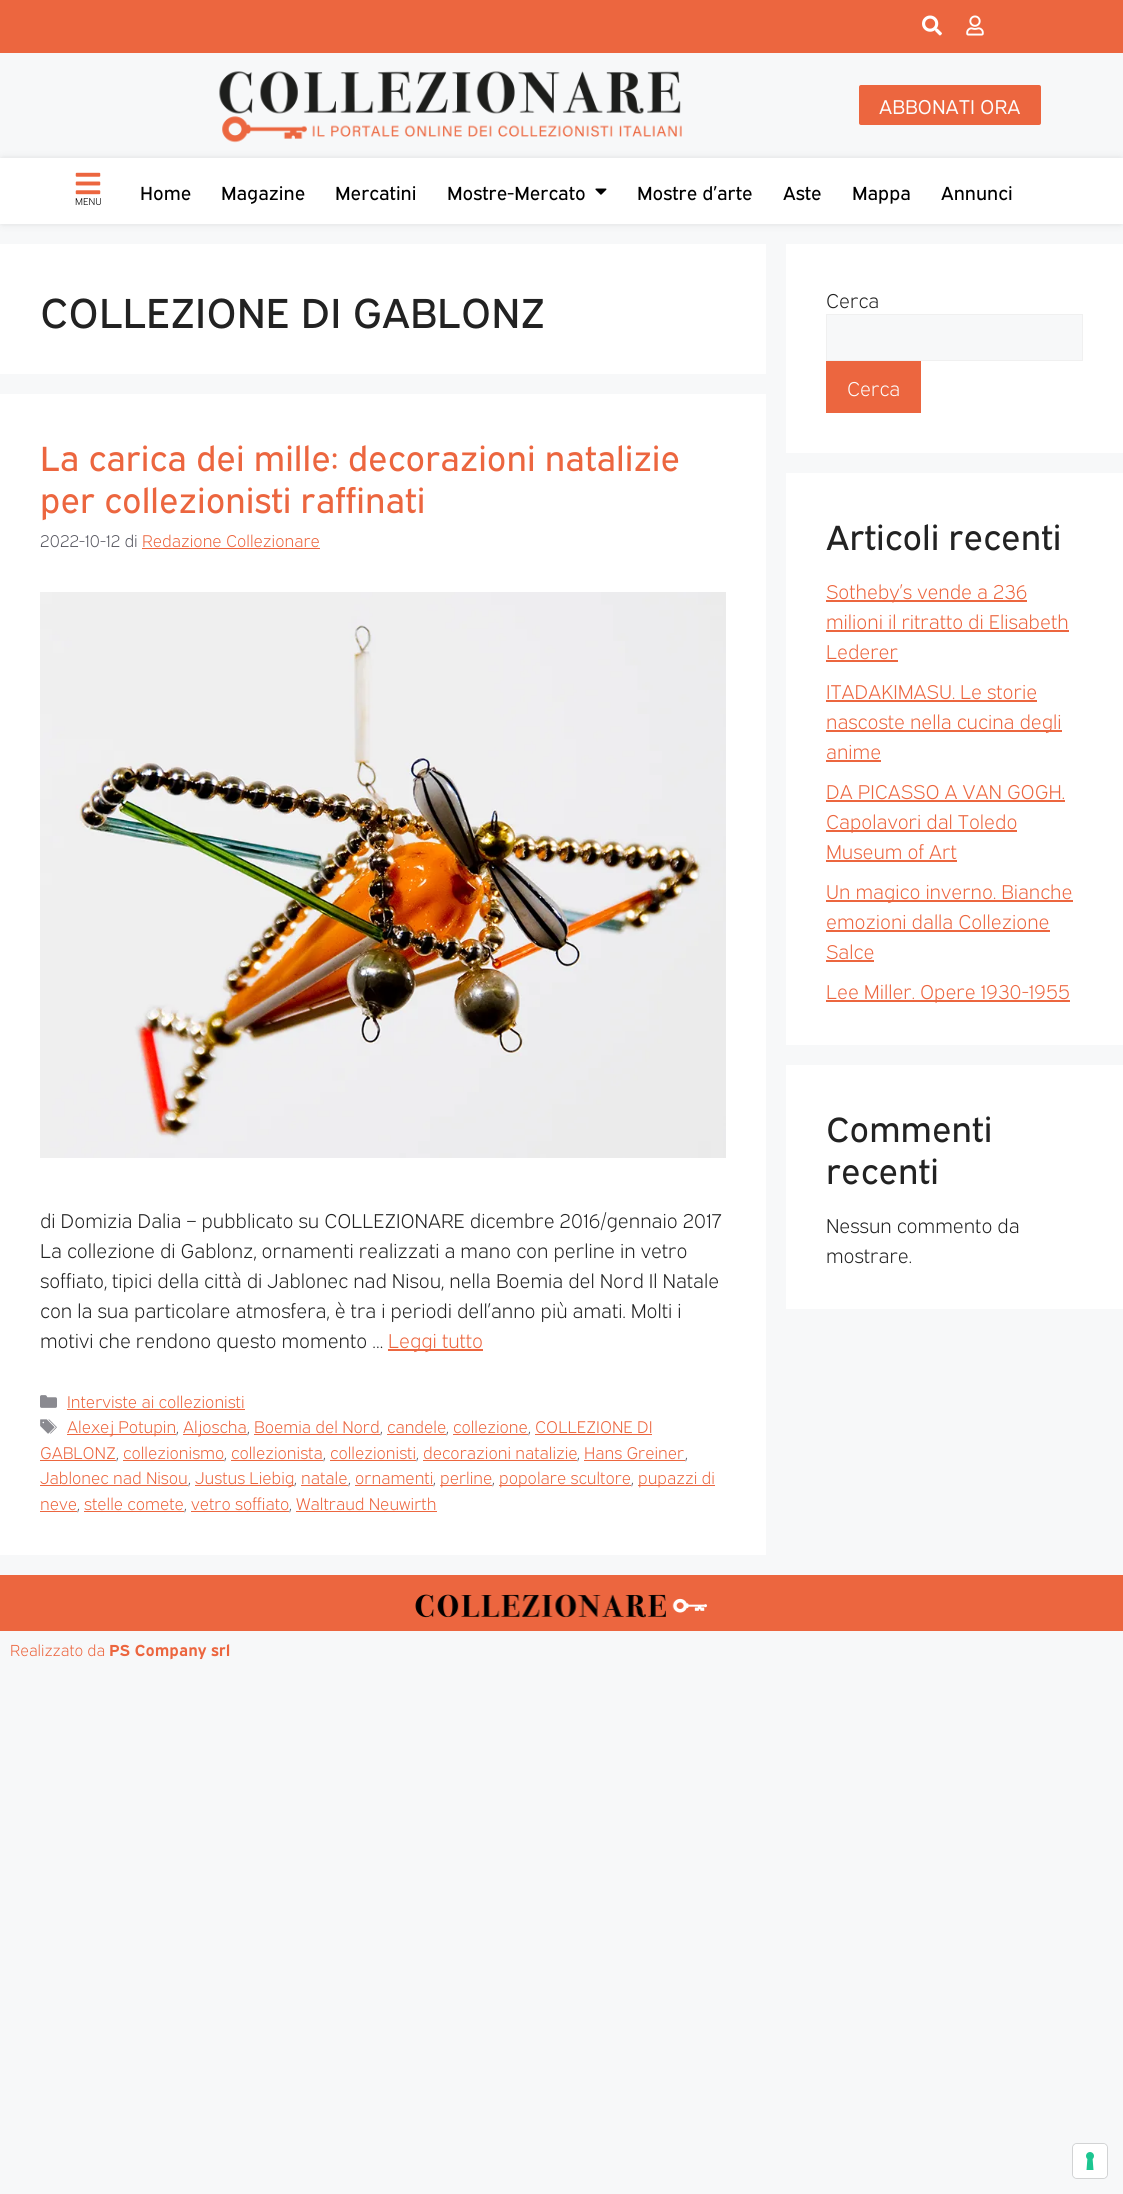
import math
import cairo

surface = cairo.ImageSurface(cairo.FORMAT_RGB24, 1123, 2194)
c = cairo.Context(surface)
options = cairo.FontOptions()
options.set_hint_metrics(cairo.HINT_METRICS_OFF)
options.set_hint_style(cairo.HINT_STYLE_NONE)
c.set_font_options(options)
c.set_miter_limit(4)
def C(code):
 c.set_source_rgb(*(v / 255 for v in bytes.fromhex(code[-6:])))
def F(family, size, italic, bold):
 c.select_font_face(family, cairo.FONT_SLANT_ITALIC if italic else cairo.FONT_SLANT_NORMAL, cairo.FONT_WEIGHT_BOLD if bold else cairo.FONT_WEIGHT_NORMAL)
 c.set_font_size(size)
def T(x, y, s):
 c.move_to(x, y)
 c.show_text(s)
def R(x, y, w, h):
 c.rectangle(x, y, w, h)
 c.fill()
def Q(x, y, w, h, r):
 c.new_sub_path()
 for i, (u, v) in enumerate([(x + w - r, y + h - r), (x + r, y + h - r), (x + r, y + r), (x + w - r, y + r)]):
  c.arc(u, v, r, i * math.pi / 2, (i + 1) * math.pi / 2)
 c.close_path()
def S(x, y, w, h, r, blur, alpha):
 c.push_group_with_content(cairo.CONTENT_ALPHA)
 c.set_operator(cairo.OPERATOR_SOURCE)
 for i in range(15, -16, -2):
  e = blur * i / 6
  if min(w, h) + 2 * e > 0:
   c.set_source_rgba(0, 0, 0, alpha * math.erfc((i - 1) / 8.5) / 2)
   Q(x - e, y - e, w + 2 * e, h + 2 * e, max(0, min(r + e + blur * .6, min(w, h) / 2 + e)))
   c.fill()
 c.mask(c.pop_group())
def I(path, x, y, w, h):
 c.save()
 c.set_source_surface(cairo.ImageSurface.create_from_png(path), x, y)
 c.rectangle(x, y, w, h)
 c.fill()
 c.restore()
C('f7f8f9')
c.paint()
C('ec663f')
R(0,0,1123,53)
I('1.png',922,15,20,21)
I('2.png',966,15,18,21)
I('3.png',219,71,463,72)
Q(859,85,182,40,2)
c.fill()
F('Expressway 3',20,0,0)
C('fdfdfd')
T(879,114,'ABBONATI ORA')
C('000000')
S(2,160,1119,62,0,4.5,.17)
C('ffffff')
R(0,158,1123,66)
I('4.png',75,172,26,23)
F('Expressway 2',10,0,0)
C('000000')
T(75,205,'MENU')
F('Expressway',19,0,0)
T(140,200,'Home')
T(221,200,'Magazine')
T(335,200,'Mercatini')
T(447,200,'Mostre-Mercato')
I('5.png',595,188,12,7)
T(637,200,'Mostre d’arte')
T(783,200,'Aste')
T(852,200,'Mappa')
T(941,200,'Annunci')
C('ffffff')
R(0,244,766,130)
F('Expressway',42,0,0)
C('222222')
T(40,328,'COLLEZIONE DI GABLONZ')
C('ffffff')
R(0,394,766,1161)
F('Expressway',35,0,0)
C('ec663f')
T(40,471,'La carica dei mille: decorazioni natalizie')
T(40,513,'per collezionisti raffinati')
F('Expressway 2',17,0,0)
C('575760')
T(40,547,'2022-10-12 di')
C('ec663f')
T(142,547,'Redazione Collezionare')
R(142,548,178,1)
I('6.png',40,592,686,566)
F('Expressway 2',20,0,0)
C('222222')
T(40,1228,'di Domizia Dalia – pubblicato su COLLEZIONARE dicembre 2016/gennaio 2017')
T(40,1258,'La collezione di Gablonz, ornamenti realizzati a mano con perline in vetro')
T(40,1288,'soffiato, tipici della città di Jablonec nad Nisou, nella Boemia del Nord Il Natale')
T(40,1318,'con la sua particolare atmosfera, è tra i periodi dell’anno più amati. Molti i')
T(40,1348,'motivi che rendono questo momento …')
C('ec663f')
R(388,1349,95,2)
T(388,1348,'Leggi tutto')
I('7.png',40,1395,17,13)
F('Expressway 2',17,0,0)
T(67,1408,'Interviste ai collezionisti')
R(67,1409,178,1)
I('8.png',40,1419,17,15)
R(67,1434,109,1)
T(67,1433,'Alexej Potupin')
C('575760')
T(176,1433,',')
C('ec663f')
R(183,1434,64,1)
T(183,1433,'Aljoscha')
C('575760')
T(247,1433,',')
C('ec663f')
T(254,1433,'Boemia del Nord')
R(254,1434,126,1)
C('575760')
T(380,1433,',')
C('ec663f')
T(387,1433,'candele')
R(387,1434,59,1)
C('575760')
T(446,1433,',')
C('ec663f')
T(453,1433,'collezione')
R(453,1434,75,1)
C('575760')
T(528,1433,',')
C('ec663f')
T(535,1433,'COLLEZIONE DI')
R(535,1434,117,1)
T(40,1459,'GABLONZ')
R(40,1460,76,1)
C('575760')
T(116,1459,',')
C('ec663f')
T(123,1459,'collezionismo')
R(123,1460,101,1)
C('575760')
T(224,1459,',')
C('ec663f')
T(231,1459,'collezionista')
R(231,1460,92,1)
C('575760')
T(323,1459,',')
C('ec663f')
T(330,1459,'collezionisti')
R(330,1460,86,1)
C('575760')
T(416,1459,',')
C('ec663f')
T(423,1459,'decorazioni natalizie')
R(423,1460,154,1)
C('575760')
T(577,1459,',')
C('ec663f')
T(584,1459,'Hans Greiner')
R(584,1460,101,1)
C('575760')
T(685,1459,',')
C('ec663f')
T(40,1484,'Jablonec nad Nisou')
R(40,1485,148,1)
C('575760')
T(188,1484,',')
C('ec663f')
R(195,1485,99,1)
T(195,1484,'Justus Liebig')
C('575760')
T(294,1484,',')
C('ec663f')
T(301,1484,'natale')
R(301,1485,47,1)
C('575760')
T(348,1484,',')
C('ec663f')
T(355,1484,'ornamenti')
R(355,1485,78,1)
C('575760')
T(433,1484,',')
C('ec663f')
R(440,1485,52,1)
T(440,1484,'perline')
C('575760')
T(492,1484,',')
C('ec663f')
R(499,1485,132,1)
T(499,1484,'popolare scultore')
C('575760')
T(631,1484,',')
C('ec663f')
R(638,1485,77,1)
T(638,1484,'pupazzi di')
T(40,1510,'neve')
R(40,1511,37,1)
C('575760')
T(77,1510,',')
C('ec663f')
T(84,1510,'stelle comete')
R(84,1511,100,1)
C('575760')
T(184,1510,',')
C('ec663f')
T(191,1510,'vetro soffiato')
R(191,1511,98,1)
C('575760')
T(289,1510,',')
C('ec663f')
T(296,1510,'Waltraud Neuwirth')
R(296,1511,141,1)
C('ffffff')
R(786,244,337,209)
F('Expressway 2',20,0,0)
C('222222')
T(826,308,'Cerca')
C('f7f8f9')
c.rectangle(826.5,314.5,256,46)
c.fill_preserve()
C('f0f0f0')
c.set_line_width(1)
c.stroke()
C('ec663f')
R(826,361,95,52)
C('fdfdfd')
T(847,396,'Cerca')
C('ffffff')
R(786,473,337,572)
F('Expressway',35,0,0)
C('222222')
T(826,550,'Articoli recenti')
C('ec663f')
R(826,600,201,2)
F('Expressway 2',20,0,0)
T(826,599,'Sotheby’s vende a 236')
T(826,629,'milioni il ritratto di Elisabeth')
R(826,630,243,2)
T(826,659,'Lederer')
R(826,660,72,2)
T(826,699,'ITADAKIMASU. Le storie')
R(826,700,211,2)
R(826,730,236,2)
T(826,729,'nascoste nella cucina degli')
T(826,759,'anime')
R(826,760,55,2)
T(826,799,'DA PICASSO A VAN GOGH.')
R(826,800,239,2)
R(826,830,191,2)
T(826,829,'Capolavori dal Toledo')
T(826,859,'Museum of Art')
R(826,860,131,2)
R(826,900,247,2)
T(826,899,'Un magico inverno. Bianche')
T(826,929,'emozioni dalla Collezione')
R(826,930,224,2)
T(826,959,'Salce')
R(826,960,48,2)
R(826,1000,244,2)
T(826,999,'Lee Miller. Opere 1930-1955')
C('ffffff')
R(786,1065,337,244)
F('Expressway',35,0,0)
C('222222')
T(826,1142,'Commenti')
T(826,1184,'recenti')
F('Expressway 2',20,0,0)
T(826,1233,'Nessun commento da')
T(826,1263,'mostrare.')
C('ec663f')
R(0,1575,1123,56)
I('9.png',415,1594,292,24)
F('Expressway 2',16,0,0)
T(10,1656,'Realizzato da')
F('Expressway',16,0,1)
T(109,1656,'PS Company srl')
Q(1072.5,2143.5,35,35,4.5)
C('d2d3d4')
c.stroke()
C('ffffff')
Q(1073,2144,34,34,4)
c.fill()
I('10.png',1086,2152,8,18)
surface.write_to_png('o.png')
